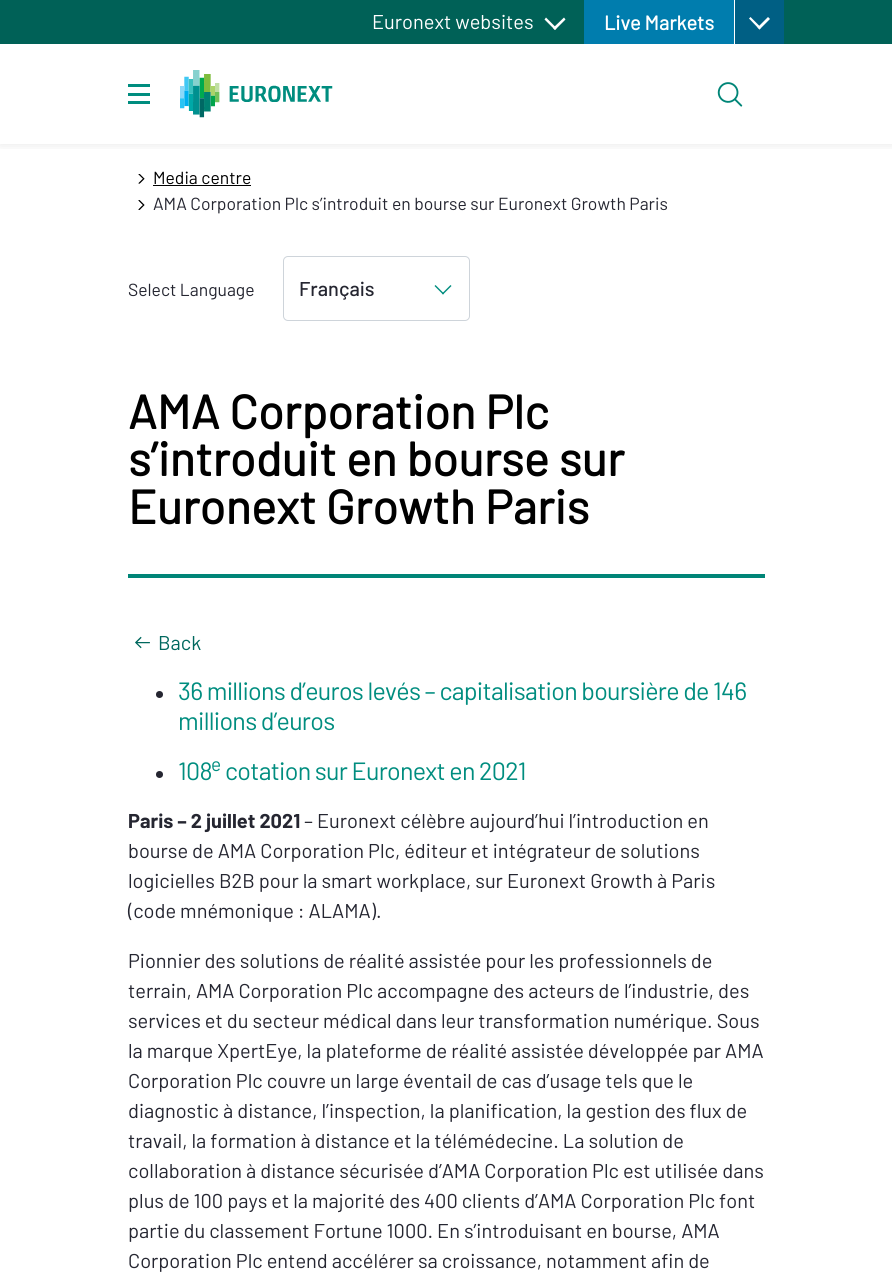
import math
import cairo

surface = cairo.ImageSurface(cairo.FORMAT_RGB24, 892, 1286)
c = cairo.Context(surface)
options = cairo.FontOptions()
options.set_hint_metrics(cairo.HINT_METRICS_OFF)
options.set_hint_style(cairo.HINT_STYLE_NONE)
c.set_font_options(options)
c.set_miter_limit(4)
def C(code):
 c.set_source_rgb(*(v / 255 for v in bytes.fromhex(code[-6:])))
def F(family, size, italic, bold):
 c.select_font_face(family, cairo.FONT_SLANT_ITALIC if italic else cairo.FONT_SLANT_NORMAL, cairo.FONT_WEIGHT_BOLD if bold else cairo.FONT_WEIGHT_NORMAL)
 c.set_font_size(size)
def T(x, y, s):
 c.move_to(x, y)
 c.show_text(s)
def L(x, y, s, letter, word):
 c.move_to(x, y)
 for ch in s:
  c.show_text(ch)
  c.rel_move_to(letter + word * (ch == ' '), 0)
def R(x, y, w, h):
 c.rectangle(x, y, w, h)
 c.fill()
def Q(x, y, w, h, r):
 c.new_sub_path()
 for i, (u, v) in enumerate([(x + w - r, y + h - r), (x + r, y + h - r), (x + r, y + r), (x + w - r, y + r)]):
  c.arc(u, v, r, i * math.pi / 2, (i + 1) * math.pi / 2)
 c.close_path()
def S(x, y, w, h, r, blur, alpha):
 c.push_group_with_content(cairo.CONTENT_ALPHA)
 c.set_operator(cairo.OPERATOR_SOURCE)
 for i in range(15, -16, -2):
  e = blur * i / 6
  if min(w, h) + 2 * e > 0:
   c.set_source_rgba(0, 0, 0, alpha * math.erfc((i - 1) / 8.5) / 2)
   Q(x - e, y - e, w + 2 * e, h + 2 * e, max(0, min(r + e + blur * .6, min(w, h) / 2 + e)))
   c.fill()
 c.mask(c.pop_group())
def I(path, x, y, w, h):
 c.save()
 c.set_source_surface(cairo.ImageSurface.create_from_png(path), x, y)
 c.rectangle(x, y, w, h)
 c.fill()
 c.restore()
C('ffffff')
c.paint()
c.save()
c.rectangle(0,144,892,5)
c.clip()
C('000000')
S(0,44,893,100,0,6,.1)
c.restore()
C('006157')
R(0,0,892,44)
F('Barlow',20,0,0)
C('ffffff')
T(372,29,'Euronext websites')
c.new_path()
c.move_to(564,17.5)
c.line_to(565.5,19.5)
c.line_to(555,30)
c.line_to(553,28)
c.close_path()
c.fill()
c.new_path()
c.move_to(546,17.5)
c.line_to(556.5,28)
c.line_to(555,30)
c.line_to(544.5,19.5)
c.close_path()
c.fill()
C('007dae')
R(584,0,150,44)
F('Barlow',20,0,1)
C('ffffff')
T(604,30,'Live Markets')
C('005f84')
R(735,0,49,44)
C('ffffff')
R(734,0,1,44)
c.new_path()
c.move_to(768,17)
c.line_to(770,19)
c.line_to(759.5,29.5)
c.line_to(757.5,27.5)
c.close_path()
c.fill()
c.new_path()
c.move_to(750.5,17)
c.line_to(761,27.5)
c.line_to(759.5,29.5)
c.line_to(749,18.5)
c.close_path()
c.fill()
C('008d7f')
R(128,93,22,3)
R(128,84,22,3)
R(128,101,22,3)
I('1.png',180,70,153,48)
I('2.png',717,82,26,25)
I('3.png',138,174,7,10)
F('Barlow',17.5,0,0)
C('000000')
T(153,184,'Media centre')
R(153,185,98,1)
I('4.png',138,200,7,10)
C('252631')
T(153,210,'AMA Corporation Plc s’introduit en bourse sur Euronext Growth Paris')
T(128,296,'Select Language')
Q(283.5,256.5,186,64,4.5)
C('ced4da')
c.set_line_width(1)
c.stroke()
F('Barlow Medium',20,0,0)
C('252631')
T(299,296,'Français')
C('008d7f')
c.new_path()
c.move_to(450.5,285)
c.line_to(451.5,286)
c.line_to(443,294.5)
c.line_to(442,293.5)
c.close_path()
c.fill()
c.new_path()
c.move_to(435.5,285)
c.line_to(444,293.5)
c.line_to(443,294.5)
c.line_to(434.5,286)
c.close_path()
c.fill()
C('008577')
R(128,574,637,4)
F('Barlow',47.5,0,1)
C('000000')
T(128,429,'AMA Corporation Plc')
T(128,476,'s’introduit en bourse sur')
T(128,524,'Euronext Growth Paris')
I('5.png',135,636,15,13)
F('Barlow',20,0,0)
C('00685e')
T(158,650,'Back')
C('252631')
c.new_path()
c.arc(159.5,694.5,3.5,0,2 * math.pi)
c.fill()
F('Barlow',25,0,0)
C('008d7f')
L(178,700,'36 millions d’euros levés – capitalisation boursière de 146',-.7,0)
L(178,730,'millions d’euros',-.7,0)
C('252631')
c.new_path()
c.arc(159.5,774.5,3.5,0,2 * math.pi)
c.fill()
C('008d7f')
L(178,780,'108',-.7,0)
F('Barlow',19,0,0)
L(211,771,'e',-.7,0)
F('Barlow',25,0,0)
L(225,780,'cotation sur Euronext en 2021',-.7,0)
F('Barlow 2',20,0,1)
C('252631')
T(128,828,'Paris – 2 juillet 2021')
F('Barlow',20,0,0)
T(304,828,'– Euronext célèbre aujourd’hui l’introduction en')
T(128,858,'bourse de AMA Corporation Plc, éditeur et intégrateur de solutions')
T(128,888,'logicielles B2B pour la smart workplace, sur Euronext Growth à Paris')
T(128,918,'(code mnémonique : ALAMA).')
T(128,968,'Pionnier des solutions de réalité assistée pour les professionnels de')
T(128,998,'terrain, AMA Corporation Plc accompagne des acteurs de l’industrie, des')
T(128,1028,'services et du secteur médical dans leur transformation numérique. Sous')
T(128,1058,'la marque XpertEye, la plateforme de réalité assistée développée par AMA')
T(128,1088,'Corporation Plc couvre un large éventail de cas d’usage tels que le')
T(128,1118,'diagnostic à distance, l’inspection, la planification, la gestion des flux de')
T(128,1148,'travail, la formation à distance et la télémédecine. La solution de')
T(128,1178,'collaboration à distance sécurisée d’AMA Corporation Plc est utilisée dans')
T(128,1208,'plus de 100 pays et la majorité des 400 clients d’AMA Corporation Plc font')
T(128,1238,'partie du classement Fortune 1000. En s’introduisant en bourse, AMA')
T(128,1268,'Corporation Plc entend accélérer sa croissance, notamment afin de')
surface.write_to_png('o.png')
